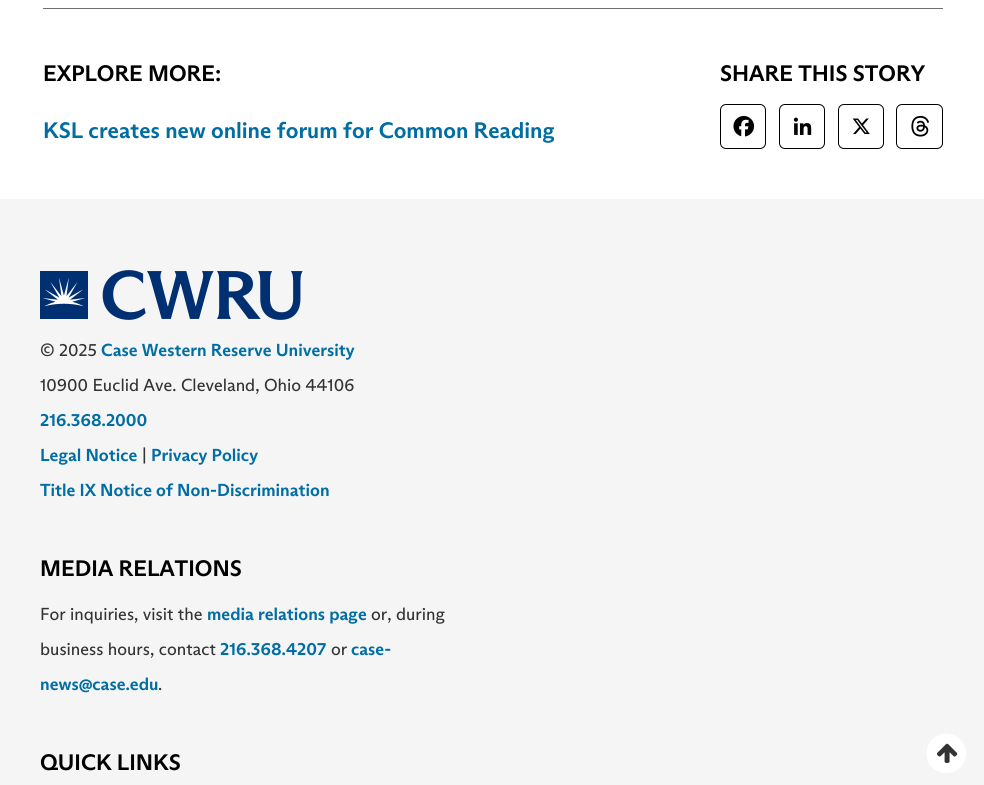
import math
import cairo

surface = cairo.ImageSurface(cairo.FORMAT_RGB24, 984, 785)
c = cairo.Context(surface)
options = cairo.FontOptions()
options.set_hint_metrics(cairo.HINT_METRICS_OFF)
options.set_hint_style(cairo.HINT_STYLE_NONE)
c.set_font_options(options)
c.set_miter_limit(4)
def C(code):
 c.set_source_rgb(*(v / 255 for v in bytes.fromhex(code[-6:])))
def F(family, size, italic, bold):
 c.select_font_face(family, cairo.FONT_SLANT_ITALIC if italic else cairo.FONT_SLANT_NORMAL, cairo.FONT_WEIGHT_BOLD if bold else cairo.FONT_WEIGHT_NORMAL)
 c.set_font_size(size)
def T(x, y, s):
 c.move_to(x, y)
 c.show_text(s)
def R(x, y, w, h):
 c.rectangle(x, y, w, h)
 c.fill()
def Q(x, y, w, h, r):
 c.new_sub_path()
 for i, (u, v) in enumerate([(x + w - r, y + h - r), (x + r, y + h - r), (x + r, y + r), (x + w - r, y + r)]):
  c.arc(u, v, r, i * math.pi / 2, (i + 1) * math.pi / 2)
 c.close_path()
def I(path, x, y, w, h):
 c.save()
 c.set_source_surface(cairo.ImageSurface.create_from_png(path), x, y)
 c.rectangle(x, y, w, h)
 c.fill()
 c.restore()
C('ffffff')
c.paint()
C('707070')
R(43,8,900,1)
F('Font',22.5,0,1)
C('000000')
T(43,81,'EXPLORE MORE:')
C('006da3')
T(43,138,'KSL creates new online forum for Common Reading')
C('000000')
T(720,81,'SHARE THIS STORY')
Q(720.5,104.5,45,44,5.5)
c.set_line_width(1)
c.stroke()
I('1.png',733,115,22,22)
Q(779.5,104.5,45,44,5.5)
c.stroke()
I('2.png',793,117,19,18)
Q(838.5,104.5,45,44,5.5)
c.stroke()
I('3.png',852,118,18,17)
Q(896.5,104.5,46,44,5.5)
c.stroke()
I('4.png',911,115,19,22)
C('f5f5f5')
R(0,199,984,586)
I('5.png',40,270,263,50)
F('Font',17.5,0,0)
C('333333')
T(40,356,'© 2025')
F('Font',17.5,0,1)
C('006da3')
T(101,356,'Case Western Reserve University')
F('Font',17.5,0,0)
C('333333')
T(40,391,'10900 Euclid Ave. Cleveland, Ohio 44106')
F('Font',17.5,0,1)
C('006da3')
T(40,426,'216.368.2000')
T(40,461,'Legal Notice')
F('Font',17.5,0,0)
C('333333')
T(142,461,'|')
F('Font',17.5,0,1)
C('006da3')
T(151,461,'Privacy Policy')
T(40,496,'Title IX Notice of Non-Discrimination')
F('Font',22.5,0,1)
C('000000')
T(40,576,'MEDIA RELATIONS')
F('Font',17.5,0,0)
C('333333')
T(40,620,'For inquiries, visit the')
F('Font',17.5,0,1)
C('006da3')
T(207,620,'media relations page')
F('Font',17.5,0,0)
C('333333')
T(371,620,'or, during')
T(40,655,'business hours, contact')
F('Font',17.5,0,1)
C('006da3')
T(220,655,'216.368.4207')
F('Font',17.5,0,0)
C('333333')
T(331,655,'or')
F('Font',17.5,0,1)
C('006da3')
T(351,655,'case-')
T(40,690,'news@case.edu')
F('Font',17.5,0,0)
C('333333')
T(158,690,'.')
F('Font',22.5,0,1)
C('000000')
T(40,770,'QUICK LINKS')
C('ffffff')
c.new_path()
c.move_to(963.5,743.5)
c.curve_to(965.5,746.5,966.5,750.5,966,754.5)
c.curve_to(965,774.5,939,780,929,763.5)
c.curve_to(927,760,926,756,926.5,752)
c.curve_to(927.5,732.5,953.5,726.5,963.5,743.5)
c.close_path()
c.fill()
I('6.png',937,743,21,20)
surface.write_to_png('o.png')
